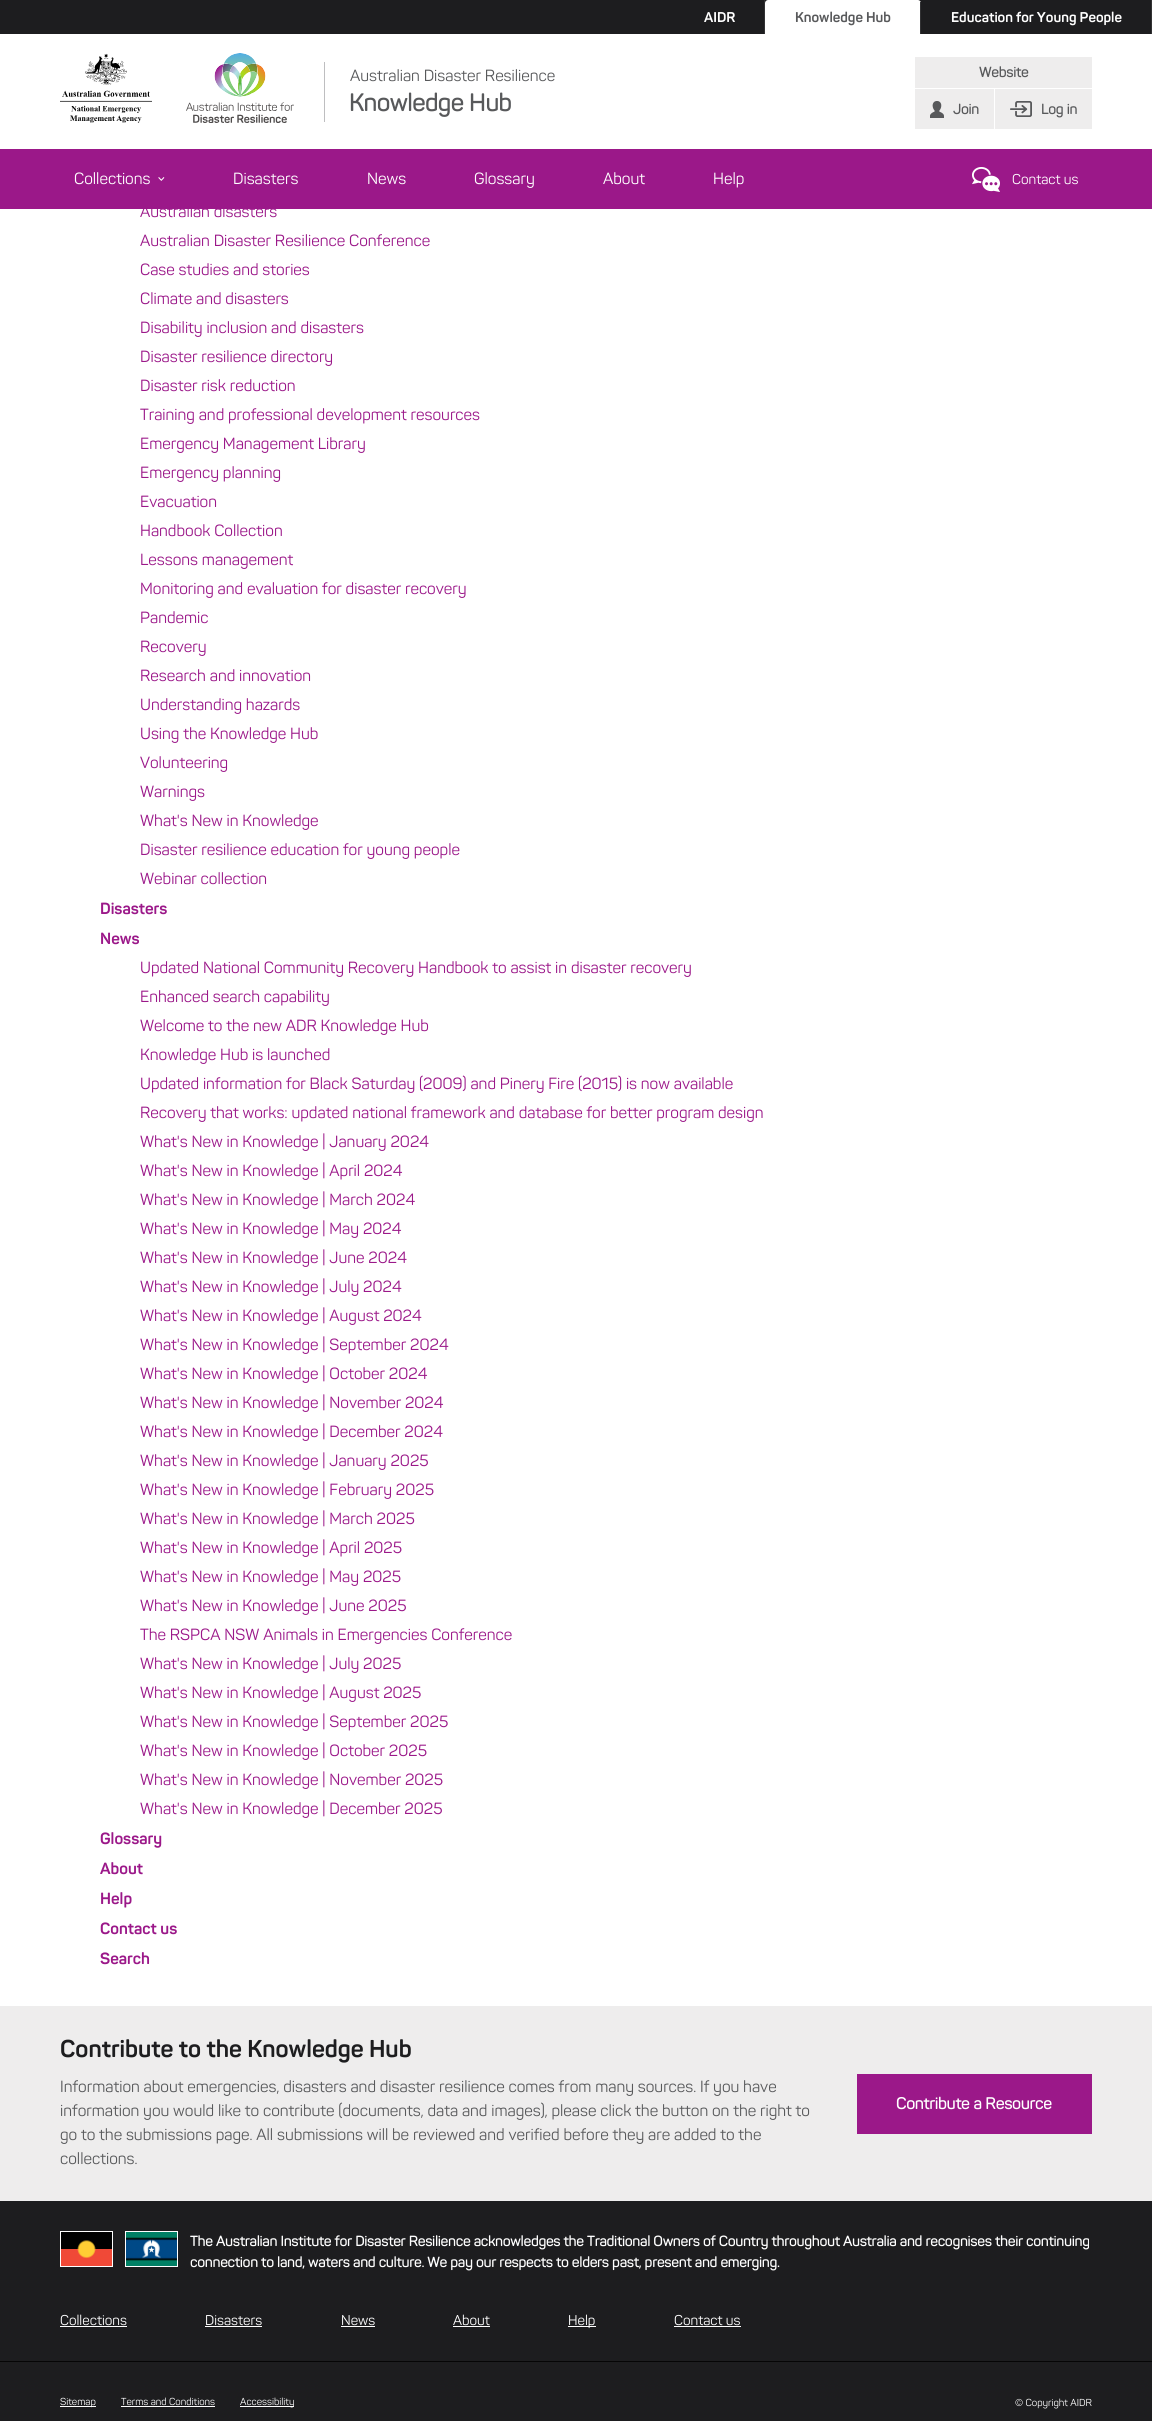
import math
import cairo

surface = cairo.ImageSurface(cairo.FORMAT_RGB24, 1152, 2421)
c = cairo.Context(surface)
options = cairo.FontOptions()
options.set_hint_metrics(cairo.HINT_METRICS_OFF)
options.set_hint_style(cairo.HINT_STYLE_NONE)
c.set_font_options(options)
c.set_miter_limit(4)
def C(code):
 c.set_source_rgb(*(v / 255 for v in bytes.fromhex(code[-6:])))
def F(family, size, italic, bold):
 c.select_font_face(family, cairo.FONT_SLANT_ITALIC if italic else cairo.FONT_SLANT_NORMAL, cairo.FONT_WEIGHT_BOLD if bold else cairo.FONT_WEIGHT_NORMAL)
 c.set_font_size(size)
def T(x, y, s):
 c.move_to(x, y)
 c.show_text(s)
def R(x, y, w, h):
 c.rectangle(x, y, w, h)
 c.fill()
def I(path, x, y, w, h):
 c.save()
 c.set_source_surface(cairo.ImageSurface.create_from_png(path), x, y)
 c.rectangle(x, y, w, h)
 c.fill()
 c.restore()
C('1d1d1f')
c.paint()
C('ffffff')
R(0,34,1152,115)
C('323234')
R(764,0,1,34)
F('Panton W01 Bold',14,0,1)
C('ffffff')
T(704,22,'AIDR')
c.new_path()
c.move_to(768,0)
c.line_to(918,0)
c.curve_to(919.5,0,921,1.5,921,3)
c.line_to(921,34)
c.line_to(765,34)
c.line_to(765,3)
c.curve_to(765,1.5,766.5,0,768,0)
c.close_path()
c.fill()
C('323234')
R(920,2,1,32)
C('58595b')
T(795,22,'Knowledge Hub')
C('323234')
R(1151,0,1,34)
C('ffffff')
T(951,22,'Education for Young People')
I('1.png',60,53,92,70)
I('2.png',186,53,108,70)
C('bebec0')
R(324,62,1,60)
F('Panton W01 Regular',16,0,0)
C('58595b')
T(350,81,'Australian Disaster Resilience')
F('Panton W01 Regular',24,0,1)
T(349,111,'Knowledge Hub')
C('9b1889')
R(0,149,1152,60)
C('eeeded')
R(915,57,177,31)
F('Panton W01 Regular',14,0,1)
C('58595b')
T(979,77,'Website')
C('eeeded')
R(915,89,79,40)
I('3.png',930,101,14,17)
C('58595b')
T(953,114,'Join')
C('eeeded')
R(995,89,97,40)
I('4.png',1010,101,22,16)
C('58595b')
T(1041,114,'Log in')
F('Panton W01 Regular',16,0,0)
C('ffffff')
T(74,184,'Collections')
I('5.png',158,177,7,4)
T(233,184,'Disasters')
T(367,184,'News')
T(474,184,'Glossary')
T(603,184,'About')
T(713,184,'Help')
I('6.png',972,167,28,25)
F('Panton W01 Regular',14,0,0)
T(1012,184,'Contact us')
R(0,209,1152,1797)
F('Panton W01 Regular',16,0,0)
C('9b1889')
T(140,217,'Australian disasters')
T(140,246,'Australian Disaster Resilience Conference')
T(140,275,'Case studies and stories')
T(140,304,'Climate and disasters')
T(140,333,'Disability inclusion and disasters')
T(140,362,'Disaster resilience directory')
T(140,391,'Disaster risk reduction')
T(140,420,'Training and professional development resources')
T(140,449,'Emergency Management Library')
T(140,478,'Emergency planning')
T(140,507,'Evacuation')
T(140,536,'Handbook Collection')
T(140,565,'Lessons management')
T(140,594,'Monitoring and evaluation for disaster recovery')
T(140,623,'Pandemic')
T(140,652,'Recovery')
T(140,681,'Research and innovation')
T(140,710,'Understanding hazards')
T(140,739,'Using the Knowledge Hub')
T(140,768,'Volunteering')
T(140,797,'Warnings')
T(140,826,'What\'s New in Knowledge')
T(140,855,'Disaster resilience education for young people')
T(140,884,'Webinar collection')
F('Panton W01 Bold',16,0,1)
T(100,914,'Disasters')
T(100,944,'News')
F('Panton W01 Regular',16,0,0)
T(140,973,'Updated National Community Recovery Handbook to assist in disaster recovery')
T(140,1002,'Enhanced search capability')
T(140,1031,'Welcome to the new ADR Knowledge Hub')
T(140,1060,'Knowledge Hub is launched')
T(140,1089,'Updated information for Black Saturday (2009) and Pinery Fire (2015) is now available')
T(140,1118,'Recovery that works: updated national framework and database for better program design')
T(140,1147,'What\'s New in Knowledge | January 2024')
T(140,1176,'What\'s New in Knowledge | April 2024')
T(140,1205,'What\'s New in Knowledge | March 2024')
T(140,1234,'What\'s New in Knowledge | May 2024')
T(140,1263,'What\'s New in Knowledge | June 2024')
T(140,1292,'What\'s New in Knowledge | July 2024')
T(140,1321,'What\'s New in Knowledge | August 2024')
T(140,1350,'What\'s New in Knowledge | September 2024')
T(140,1379,'What\'s New in Knowledge | October 2024')
T(140,1408,'What\'s New in Knowledge | November 2024')
T(140,1437,'What\'s New in Knowledge | December 2024')
T(140,1466,'What\'s New in Knowledge | January 2025')
T(140,1495,'What\'s New in Knowledge | February 2025')
T(140,1524,'What\'s New in Knowledge | March 2025')
T(140,1553,'What\'s New in Knowledge | April 2025')
T(140,1582,'What\'s New in Knowledge | May 2025')
T(140,1611,'What\'s New in Knowledge | June 2025')
T(140,1640,'The RSPCA NSW Animals in Emergencies Conference')
T(140,1669,'What\'s New in Knowledge | July 2025')
T(140,1698,'What\'s New in Knowledge | August 2025')
T(140,1727,'What\'s New in Knowledge | September 2025')
T(140,1756,'What\'s New in Knowledge | October 2025')
T(140,1785,'What\'s New in Knowledge | November 2025')
T(140,1814,'What\'s New in Knowledge | December 2025')
F('Panton W01 Bold',16,0,1)
T(100,1844,'Glossary')
T(100,1874,'About')
T(100,1904,'Help')
T(100,1934,'Contact us')
T(100,1964,'Search')
C('eeeded')
R(0,2006,1152,195)
F('Panton W01 Bold',24,0,1)
C('1d1d1f')
T(60,2057,'Contribute to the Knowledge Hub')
F('Panton W01 Regular',16,0,0)
C('58595b')
T(60,2092,'Information about emergencies, disasters and disaster resilience comes from many sources. If you have')
T(60,2116,'information you would like to contribute (documents, data and images), please click the button on the right to')
T(60,2140,'go to the submissions page. All submissions will be reviewed and verified before they are added to the')
T(60,2164,'collections.')
C('9b1889')
R(857,2074,235,60)
F('Panton W01 Regular',16,0,1)
C('ffffff')
T(896,2109,'Contribute a Resource')
c.rectangle(60.5,2231.5,52,35)
c.set_line_width(1)
c.stroke()
I('7.png',61,2232,51,34)
c.rectangle(125.5,2231.5,52,35)
c.stroke()
I('8.png',126,2232,51,34)
F('Panton W01 Regular',14,0,1)
T(190,2246,'The Australian Institute for Disaster Resilience acknowledges the Traditional Owners of Country throughout Australia and recognises their continuing')
T(190,2267,'connection to land, waters and culture. We pay our respects to elders past, present and emerging.')
F('Panton W01 Regular',14,0,0)
T(60,2325,'Collections')
R(60,2326,67,1)
T(205,2325,'Disasters')
R(205,2326,57,1)
T(341,2325,'News')
R(341,2326,34,1)
T(453,2325,'About')
R(453,2326,37,1)
R(568,2326,28,1)
T(568,2325,'Help')
T(674,2325,'Contact us')
R(674,2326,67,1)
C('060606')
R(0,2361,1152,1)
C('ffffff')
R(60,2406,36,1)
F('Panton W01 Regular',10,0,0)
T(60,2405,'Sitemap')
T(121,2405,'Terms and Conditions')
R(121,2406,94,1)
R(240,2406,54,1)
T(240,2405,'Accessibility')
T(1015,2406,'© Copyright AIDR')
surface.write_to_png('o.png')
